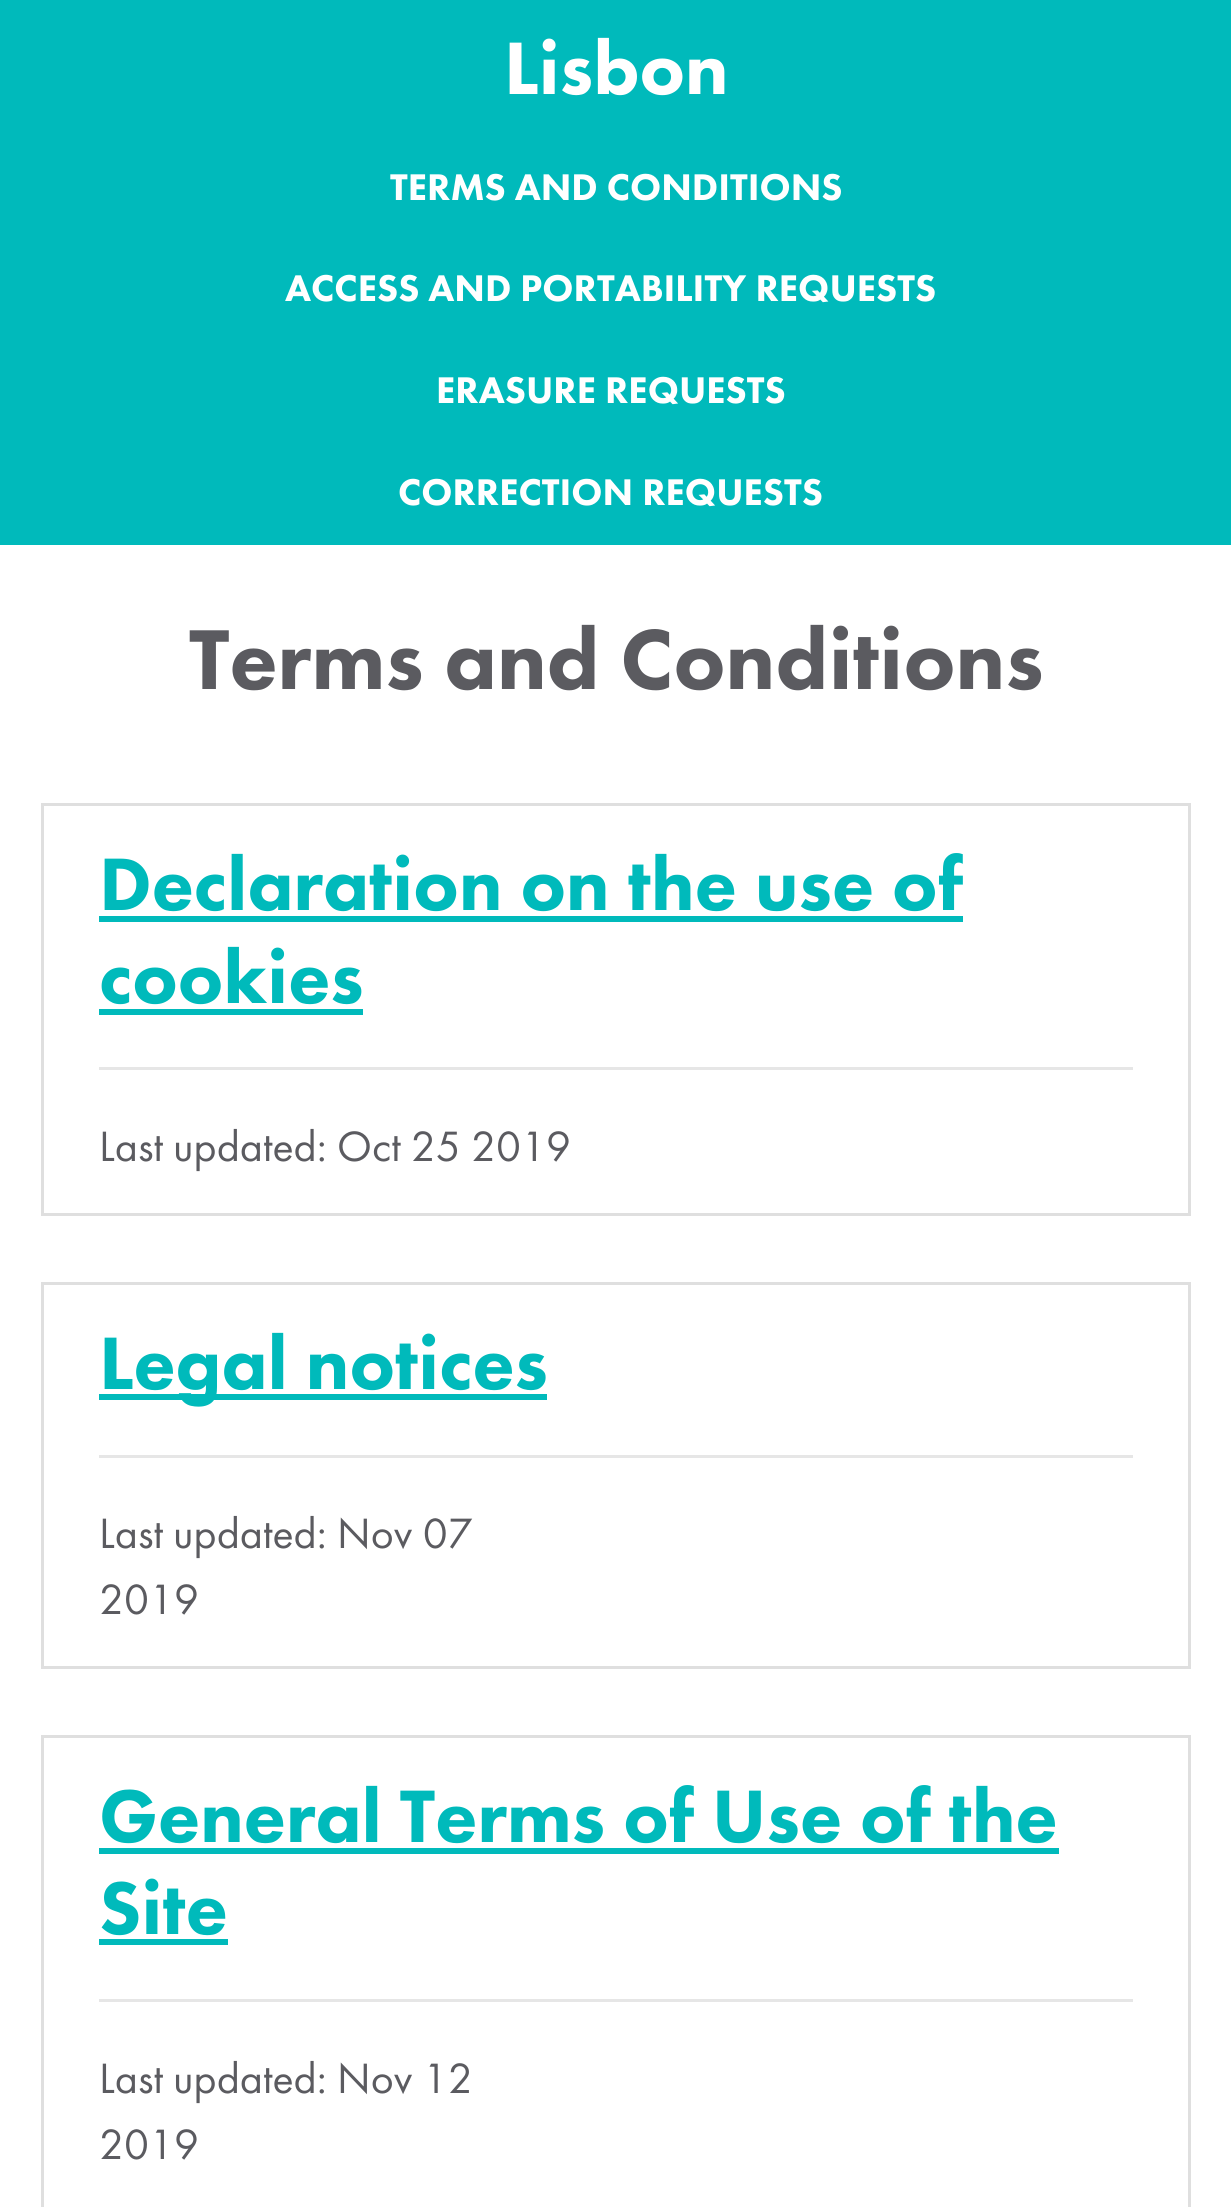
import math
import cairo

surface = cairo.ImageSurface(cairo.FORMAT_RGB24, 1231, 2207)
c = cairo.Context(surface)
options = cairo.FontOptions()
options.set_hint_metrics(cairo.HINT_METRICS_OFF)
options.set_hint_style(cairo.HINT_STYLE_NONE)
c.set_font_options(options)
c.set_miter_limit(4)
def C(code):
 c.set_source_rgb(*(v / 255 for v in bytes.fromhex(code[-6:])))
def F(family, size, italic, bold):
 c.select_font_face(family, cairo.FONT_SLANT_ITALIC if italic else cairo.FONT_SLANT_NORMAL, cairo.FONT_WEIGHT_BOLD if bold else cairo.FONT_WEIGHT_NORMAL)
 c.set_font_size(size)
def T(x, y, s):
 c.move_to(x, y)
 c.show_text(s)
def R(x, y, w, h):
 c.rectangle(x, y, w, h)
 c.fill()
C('ffffff')
c.paint()
C('00babb')
R(0,0,1231,545)
F('Futura PT Black',77,0,0)
C('ffffff')
T(504,94,'Lisbon')
F('Futura PT Black',38.5,0,0)
T(390,200,'TERMS AND CONDITIONS')
T(285,301,'ACCESS AND PORTABILITY REQUESTS')
T(436,403,'ERASURE REQUESTS')
T(398,505,'CORRECTION REQUESTS')
F('Futura PT Black',88,0,0)
C('5b5b60')
T(189,689,'Terms and Conditions')
c.rectangle(42.5,804.5,1147,410)
C('dfdfdf')
c.set_line_width(3)
c.stroke()
F('Futura PT Black',77,0,0)
C('00babb')
T(99,910,'Declaration on the use of')
R(99,916,864,6)
T(99,1003,'cookies')
R(99,1009,264,6)
C('e6e6e6')
R(99,1067,1034,3)
F('Futura PT',44,0,0)
C('5b5b60')
T(99,1161,'Last updated: Oct 25 2019')
c.rectangle(42.5,1283.5,1147,384)
C('dfdfdf')
c.stroke()
C('00babb')
R(99,1394,448,6)
F('Futura PT Black',77,0,0)
T(99,1389,'Legal notices')
C('e6e6e6')
R(99,1455,1034,3)
F('Futura PT',44,0,0)
C('5b5b60')
T(99,1548,'Last updated: Nov 07')
T(99,1614,'2019')
c.rectangle(42.5,1736.5,1147,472)
C('dfdfdf')
c.stroke()
F('Futura PT Black',77,0,0)
C('00babb')
T(99,1842,'General Terms of Use of the')
R(99,1848,960,6)
T(99,1934,'Site')
R(99,1939,129,6)
C('e6e6e6')
R(99,1999,1034,3)
F('Futura PT',44,0,0)
C('5b5b60')
T(99,2093,'Last updated: Nov 12')
T(99,2159,'2019')
surface.write_to_png('o.png')
